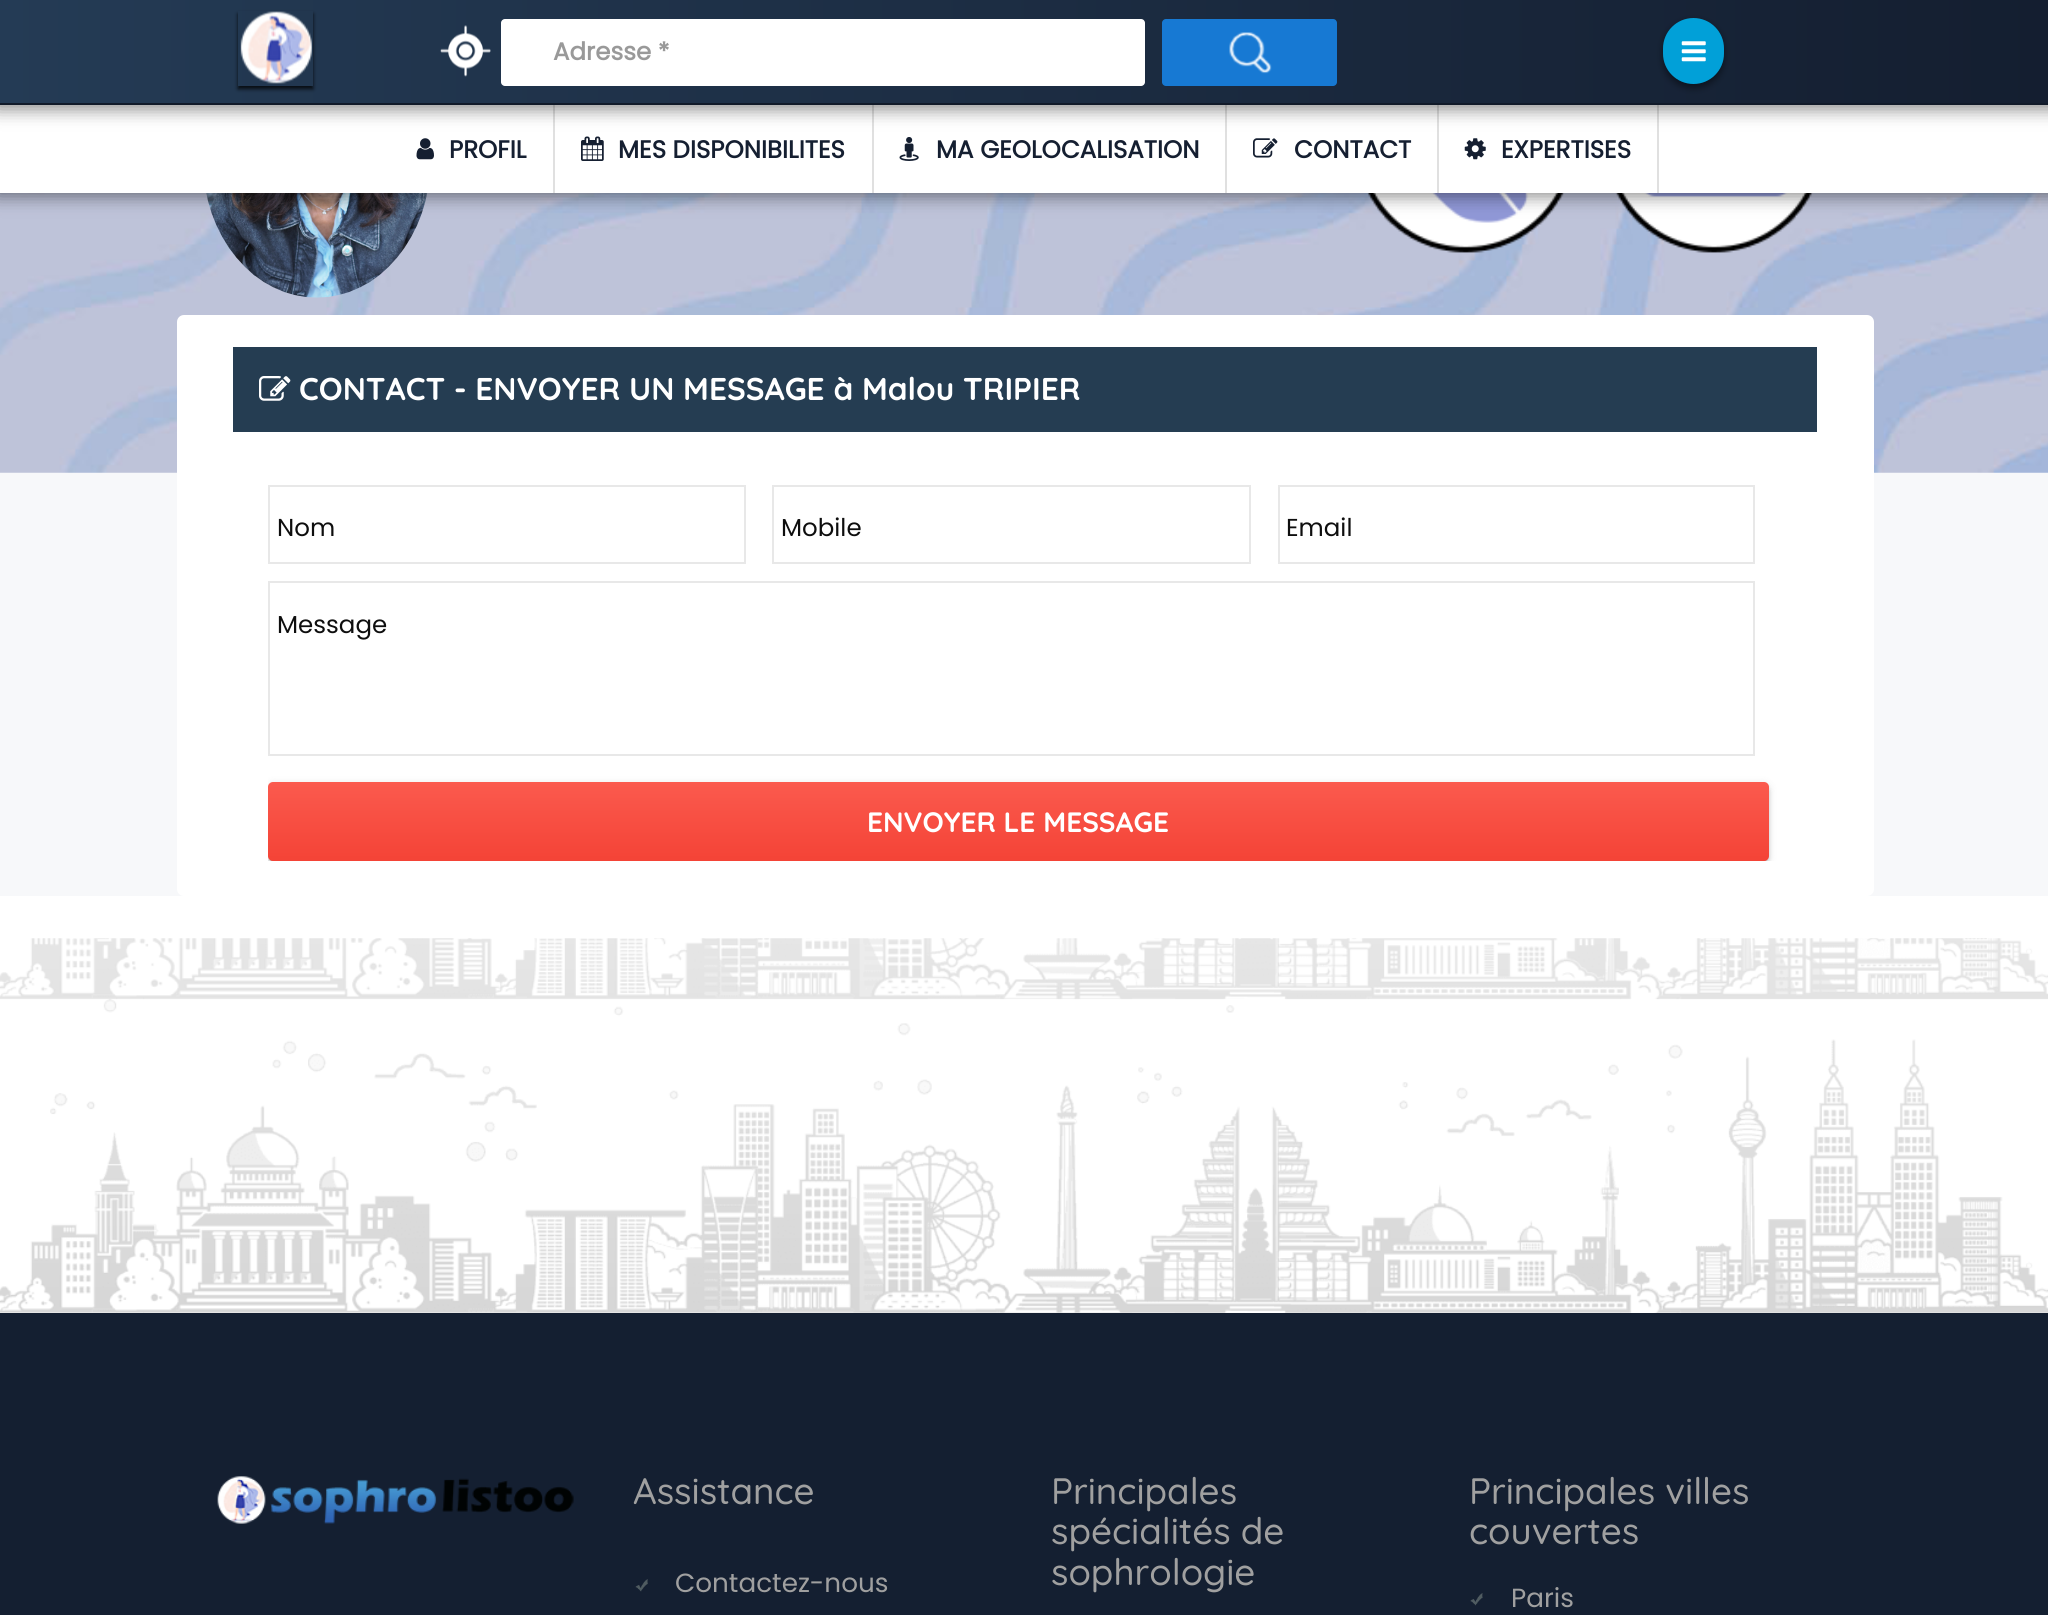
import math
import cairo

surface = cairo.ImageSurface(cairo.FORMAT_RGB24, 2048, 1615)
c = cairo.Context(surface)
options = cairo.FontOptions()
options.set_hint_metrics(cairo.HINT_METRICS_OFF)
options.set_hint_style(cairo.HINT_STYLE_NONE)
c.set_font_options(options)
c.set_miter_limit(4)
def C(code):
 c.set_source_rgb(*(v / 255 for v in bytes.fromhex(code[-6:])))
def F(family, size, italic, bold):
 c.select_font_face(family, cairo.FONT_SLANT_ITALIC if italic else cairo.FONT_SLANT_NORMAL, cairo.FONT_WEIGHT_BOLD if bold else cairo.FONT_WEIGHT_NORMAL)
 c.set_font_size(size)
def T(x, y, s):
 c.move_to(x, y)
 c.show_text(s)
def R(x, y, w, h):
 c.rectangle(x, y, w, h)
 c.fill()
def Q(x, y, w, h, r):
 c.new_sub_path()
 for i, (u, v) in enumerate([(x + w - r, y + h - r), (x + r, y + h - r), (x + r, y + r), (x + w - r, y + r)]):
  c.arc(u, v, r, i * math.pi / 2, (i + 1) * math.pi / 2)
 c.close_path()
def S(x, y, w, h, r, blur, alpha):
 c.push_group_with_content(cairo.CONTENT_ALPHA)
 c.set_operator(cairo.OPERATOR_SOURCE)
 for i in range(15, -16, -2):
  e = blur * i / 6
  if min(w, h) + 2 * e > 0:
   c.set_source_rgba(0, 0, 0, alpha * math.erfc((i - 1) / 8.5) / 2)
   Q(x - e, y - e, w + 2 * e, h + 2 * e, max(0, min(r + e + blur * .6, min(w, h) / 2 + e)))
   c.fill()
 c.mask(c.pop_group())
def I(path, x, y, w, h):
 c.save()
 c.set_source_surface(cairo.ImageSurface.create_from_png(path), x, y)
 c.rectangle(x, y, w, h)
 c.fill()
 c.restore()
C('ffffff')
c.paint()
C('f7f8fa')
R(0,472,2048,424)
I('10.png',0,193,2048,280)
I('11.png',206,193,222,105)
I('12.png',1367,193,197,60)
I('13.png',1615,193,198,60)
C('000000')
S(-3,102,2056,94,0,9,.47)
C('ffffff')
R(0,105,2048,88)
C('e0e0e0')
R(553,105,2,88)
R(872,105,2,88)
I('6.png',581,136,23,25)
R(1225,105,2,88)
R(1437,105,2,88)
R(1657,105,2,88)
C('000000')
S(-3,-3,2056,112,0,9,.47)
gradient = cairo.LinearGradient(0,52,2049,52)
gradient.add_color_stop_rgba(0,0.141,0.231,0.333,1)
gradient.add_color_stop_rgba(1,0.078,0.118,0.188,1)
c.set_source(gradient)
R(0,0,2048,103)
C('111a29')
R(0,103,2048,2)
c.save()
c.set_fill_rule(cairo.FILL_RULE_EVEN_ODD)
c.new_path()
c.move_to(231,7)
c.line_to(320,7)
c.line_to(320,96)
c.line_to(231,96)
c.close_path()
c.move_to(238,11)
c.line_to(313,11)
c.line_to(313,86)
c.line_to(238,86)
c.close_path()
c.clip()
C('000000')
S(238,14,75,75,0,2,.8)
c.restore()
I('1.png',240,11,72,73)
I('2.png',440,25,51,52)
C('ffffff')
Q(501,19,644,67,4)
c.fill()
F('Poppins',24.5,0,1)
C('999999')
T(553,60,'Adresse *')
C('1779d3')
Q(1162,19,175,67,4)
c.fill()
I('3.png',1229,32,43,42)
C('000000')
S(1663,21,61,67,30.5,3.5,.45)
C('01a0d8')
Q(1663,18,61,66,30.5)
c.fill()
I('4.png',1681,41,25,21)
I('5.png',416,138,18,22)
C('151f31')
T(449,158,'PROFIL')
T(618,158,'MES DISPONIBILITES')
I('7.png',899,137,20,24)
T(936,158,'MA GEOLOCALISATION')
I('8.png',1253,138,25,20)
T(1294,158,'CONTACT')
I('9.png',1464,138,22,22)
T(1501,158,'EXPERTISES')
C('ffffff')
Q(177,315,1697,581,7)
c.fill()
C('253d52')
R(233,347,1584,85)
I('14.png',259,376,32,25)
F('Quicksand',31.5,0,1)
C('ffffff')
T(299,400,'CONTACT - ENVOYER UN MESSAGE à Malou TRIPIER')
c.rectangle(269,486,476,77)
C('e8e8e8')
c.stroke()
F('Poppins',24.5,0,0)
C('0e0e0e')
T(277,536,'Nom')
c.rectangle(773,486,477,77)
C('e8e8e8')
c.stroke()
C('0e0e0e')
T(781,536,'Mobile')
c.rectangle(1279,486,475,77)
C('e8e8e8')
c.stroke()
C('0e0e0e')
T(1286,536,'Email')
c.rectangle(269,582,1485,173)
C('e8e8e8')
c.stroke()
C('0e0e0e')
T(277,633,'Message')
c.save()
c.rectangle(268,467,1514,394)
c.clip()
C('000000')
S(271,791,1495,72,2,1,.2)
S(268,784,1501,79,5,4.5,.12)
S(268,786,1501,79,5,2,.14)
c.restore()
gradient = cairo.LinearGradient(1019,861,1019,782)
gradient.add_color_stop_rgba(0,0.957,0.263,0.212,1)
gradient.add_color_stop_rgba(1,0.984,0.353,0.306,1)
c.set_source(gradient)
Q(268,782,1501,79,5)
c.fill()
F('Quicksand',28,0,1)
C('ffffff')
T(867,832,'ENVOYER LE MESSAGE')
I('15.png',0,938,2048,375)
gradient = cairo.LinearGradient(1025,1313,1025,938)
gradient.add_color_stop_rgba(0,1,1,1,.68)
gradient.add_color_stop_rgba(1,1,1,1,.8)
c.set_source(gradient)
R(0,938,2048,375)
C('141f31')
R(0,1313,2048,302)
I('16.png',217,1476,357,48)
F('Quicksand Medium',36.75,0,0)
C('a0a0a0')
T(633,1504,'Assistance')
I('17.png',635,1579,13,13)
F('Poppins',26.25,0,0)
T(675,1592,'Contactez-nous')
F('Quicksand Medium',36.75,0,0)
T(1051,1504,'Principales')
T(1051,1544,'spécialités de')
T(1051,1585,'sophrologie')
T(1469,1504,'Principales villes')
T(1469,1544,'couvertes')
I('18.png',1470,1593,13,13)
F('Poppins',26.25,0,0)
T(1511,1607,'Paris')
surface.write_to_png('o.png')
